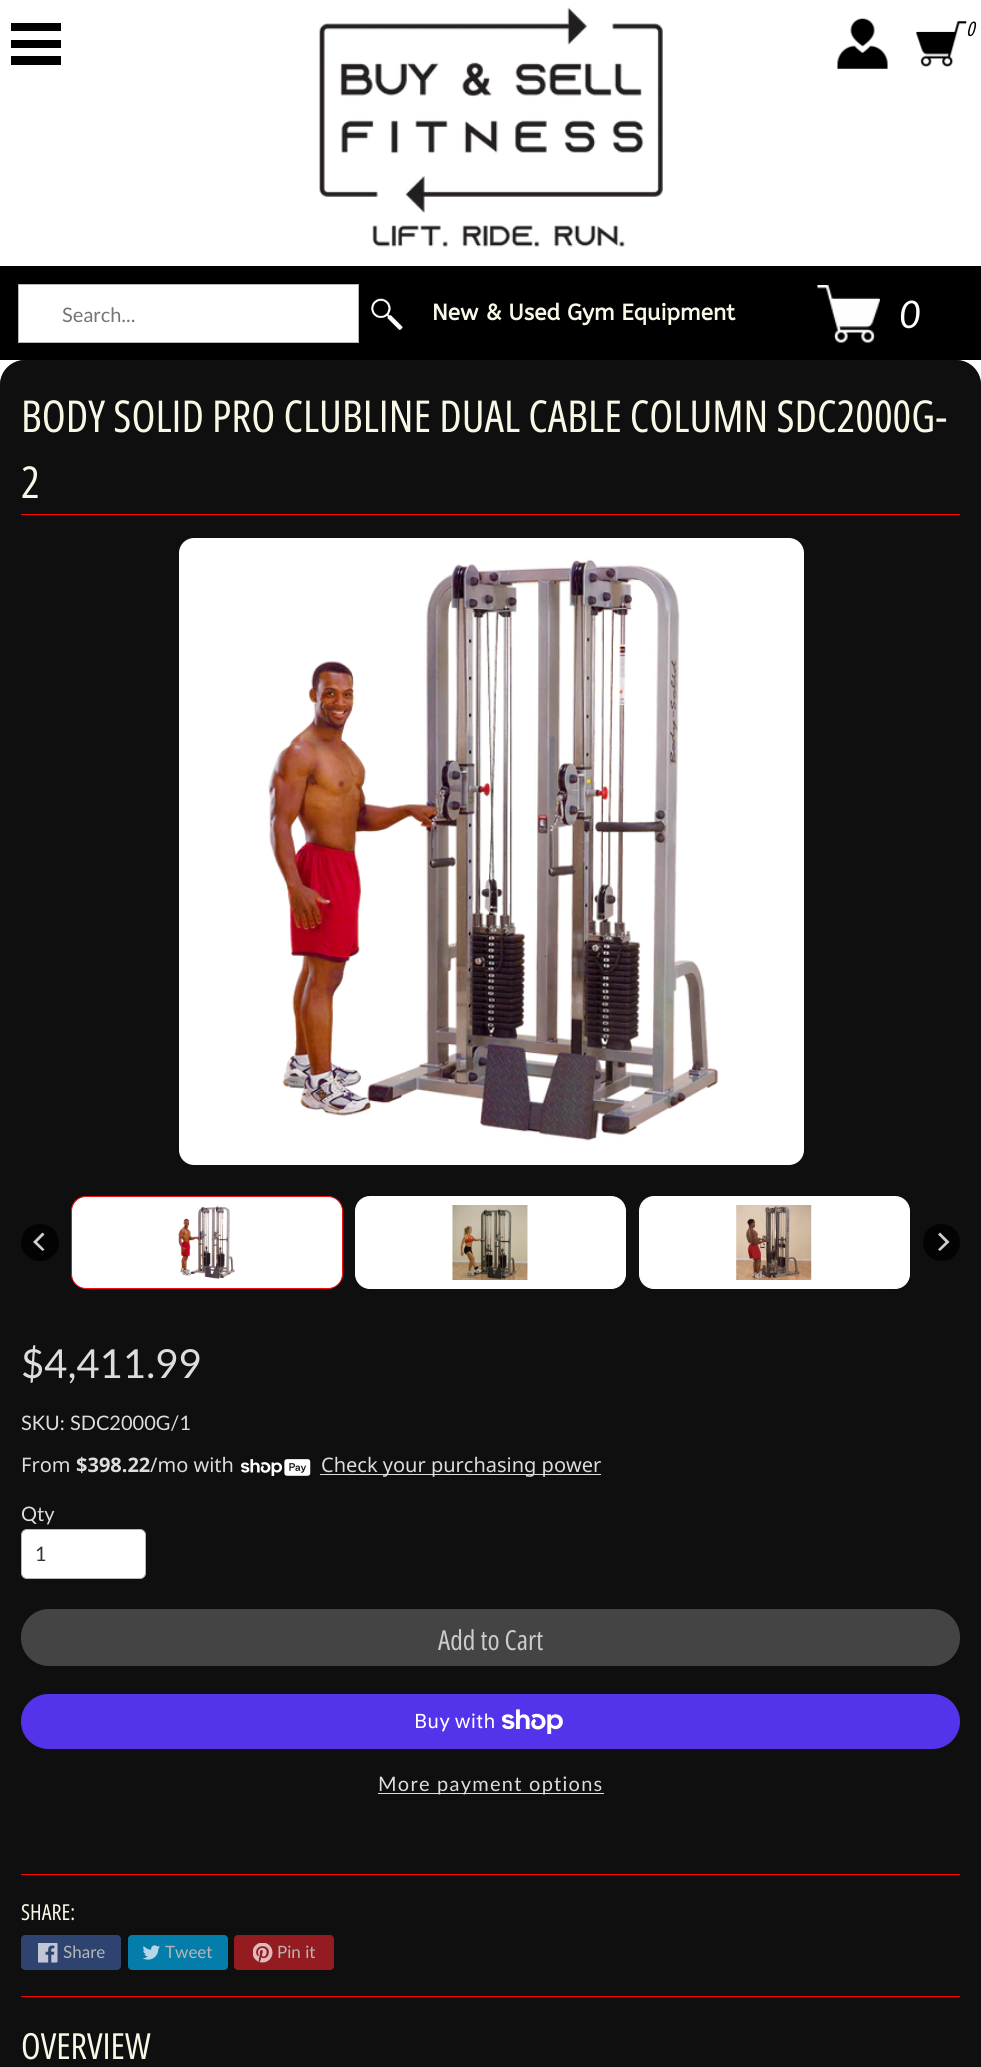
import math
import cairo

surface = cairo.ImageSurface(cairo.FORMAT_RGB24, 981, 2067)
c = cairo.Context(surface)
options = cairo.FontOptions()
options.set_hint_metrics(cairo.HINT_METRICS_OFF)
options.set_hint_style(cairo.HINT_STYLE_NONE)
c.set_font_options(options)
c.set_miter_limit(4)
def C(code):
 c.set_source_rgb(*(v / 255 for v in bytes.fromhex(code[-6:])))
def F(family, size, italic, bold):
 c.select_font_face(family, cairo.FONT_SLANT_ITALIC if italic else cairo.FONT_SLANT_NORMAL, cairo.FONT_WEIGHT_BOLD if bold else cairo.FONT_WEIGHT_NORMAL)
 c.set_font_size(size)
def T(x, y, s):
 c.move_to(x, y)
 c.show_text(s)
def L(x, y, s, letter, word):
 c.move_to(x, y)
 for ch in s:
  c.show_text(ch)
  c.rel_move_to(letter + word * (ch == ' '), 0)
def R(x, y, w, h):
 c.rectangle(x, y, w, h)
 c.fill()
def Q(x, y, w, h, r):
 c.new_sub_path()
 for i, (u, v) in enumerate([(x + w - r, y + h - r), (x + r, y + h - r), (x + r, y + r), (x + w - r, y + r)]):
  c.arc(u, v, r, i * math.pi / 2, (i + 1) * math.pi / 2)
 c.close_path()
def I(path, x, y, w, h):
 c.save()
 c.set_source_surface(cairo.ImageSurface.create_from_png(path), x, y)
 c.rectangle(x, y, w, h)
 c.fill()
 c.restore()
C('ffffff')
c.paint()
C('000000')
c.new_path()
c.move_to(61,31)
c.line_to(11,31)
c.line_to(11,23)
c.line_to(61,23)
c.close_path()
c.move_to(61,40)
c.line_to(11,40)
c.line_to(11,48)
c.line_to(61,48)
c.close_path()
c.move_to(61,56)
c.line_to(11,56)
c.line_to(11,65)
c.line_to(61,65)
c.close_path()
c.fill()
I('1.png',319,7,344,240)
I('2.png',837,18,51,51)
I('3.png',916,21,51,46)
F('Open Sans Condensed',20,1,0)
T(966,36,'0')
R(0,266,981,94)
C('ffffff')
c.rectangle(18.5,284.5,340,58)
c.fill_preserve()
C('b2b9bd')
c.set_line_width(1)
c.stroke()
F('Lato',20,0,0)
C('757575')
T(62,322,'Search...')
I('4.png',371,298,32,32)
F('ABeeZee',22.5,0,1)
C('f9f8e7')
T(432,320,'New & Used Gym Equipment')
I('5.png',817,285,63,58)
F('Lato',38,1,0)
C('ffffff')
T(899,328,'0')
C('100f0f')
Q(0,360,981,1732,25)
c.fill()
Q(.5,360.5,980,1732,24.5)
c.set_source_rgba(0.063,0.059,0.059,0.7)
c.stroke()
C('fe0000')
R(21,514,939,1)
F('Open Sans Condensed',44,0,0)
C('f9f8e7')
T(21,432,'BODY SOLID PRO CLUBLINE DUAL CABLE COLUMN SDC2000G-')
T(21,498,'2')
C('ffffff')
Q(179,538,625,627,15)
c.fill()
I('6.png',268,559,451,582)
C('030303')
Q(21,1224,38,37,18.5)
c.fill()
C('cfcfcf')
c.new_path()
c.move_to(33,1242)
c.line_to(42.5,1251)
c.line_to(44.5,1249.5)
c.line_to(37,1242)
c.line_to(44.5,1234.5)
c.line_to(42.5,1232.5)
c.close_path()
c.fill()
C('ffffff')
Q(71.5,1196.5,271,92,14.5)
c.fill_preserve()
C('f10f0f')
c.stroke()
I('7.png',178,1206,57,73)
C('ffffff')
Q(355.5,1196.5,270,92,14.5)
c.fill_preserve()
c.stroke()
I('8.png',452,1205,76,75)
Q(639.5,1196.5,270,92,14.5)
c.fill_preserve()
c.stroke()
I('9.png',736,1205,76,75)
C('030303')
c.arc(941.5,1242.5,18.5,0,2 * math.pi)
c.fill()
C('cfcfcf')
c.new_path()
c.move_to(949.5,1242)
c.line_to(940,1232.5)
c.line_to(938,1234.5)
c.line_to(945.5,1242)
c.line_to(938,1249.5)
c.line_to(940,1251)
c.close_path()
c.fill()
F('Lato',40,0,0)
C('dddddd')
T(21,1378,'$4,411.99')
F('Lato',20,0,0)
T(21,1430,'SKU: SDC2000G/1')
F('Noto Sans',20,0,0)
T(21,1472,'From')
F('Noto Sans',20,0,1)
T(76,1472,'$398.22')
F('Noto Sans',20,0,0)
T(150,1472,'/mo with')
I('10.png',241,1459,70,17)
R(320,1474,281,1)
T(321,1472,'Check your purchasing power')
F('Lato',20,0,0)
T(21,1521,'Qty')
C('ffffff')
Q(21.5,1529.5,124,49,5.5)
c.fill_preserve()
C('b2b9bd')
c.stroke()
C('333333')
T(35,1561,'1')
C('444444')
Q(21,1609,939,57,28)
c.fill()
F('Open Sans Condensed',27.5,0,0)
C('cccccc')
T(438,1650,'Add to Cart')
C('5433eb')
Q(21,1694,939,55,27.5)
c.fill()
F('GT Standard',20,0,0)
C('ffffff')
T(414,1728,'Buy with')
I('11.png',501,1709,62,25)
C('dddddd')
R(378,1793,226,1)
F('Lato',20,0,0)
L(378,1791,'More payment options',1.25,0)
C('fe0000')
R(21,1874,939,1)
F('Open Sans Condensed',22,0,0)
C('f9f8e7')
T(21,1920,'SHARE:')
C('2e436f')
Q(21,1935,100,35,4)
c.fill()
I('12.png',38,1943,20,20)
F('Lato',17,0,0)
C('b7b7b7')
T(63,1958,'Share')
C('057daa')
Q(128,1935,100,35,4)
c.fill()
I('13.png',143,1945,17,15)
C('b7b7b7')
T(165,1958,'Tweet')
C('941c20')
Q(234,1935,100,35,4)
c.fill()
I('14.png',253,1943,20,20)
C('b7b7b7')
T(277,1958,'Pin it')
C('fe0000')
R(21,1996,939,1)
F('Open Sans Condensed',36,0,0)
C('f9f8e7')
T(21,2059,'OVERVIEW')
surface.write_to_png('o.png')
